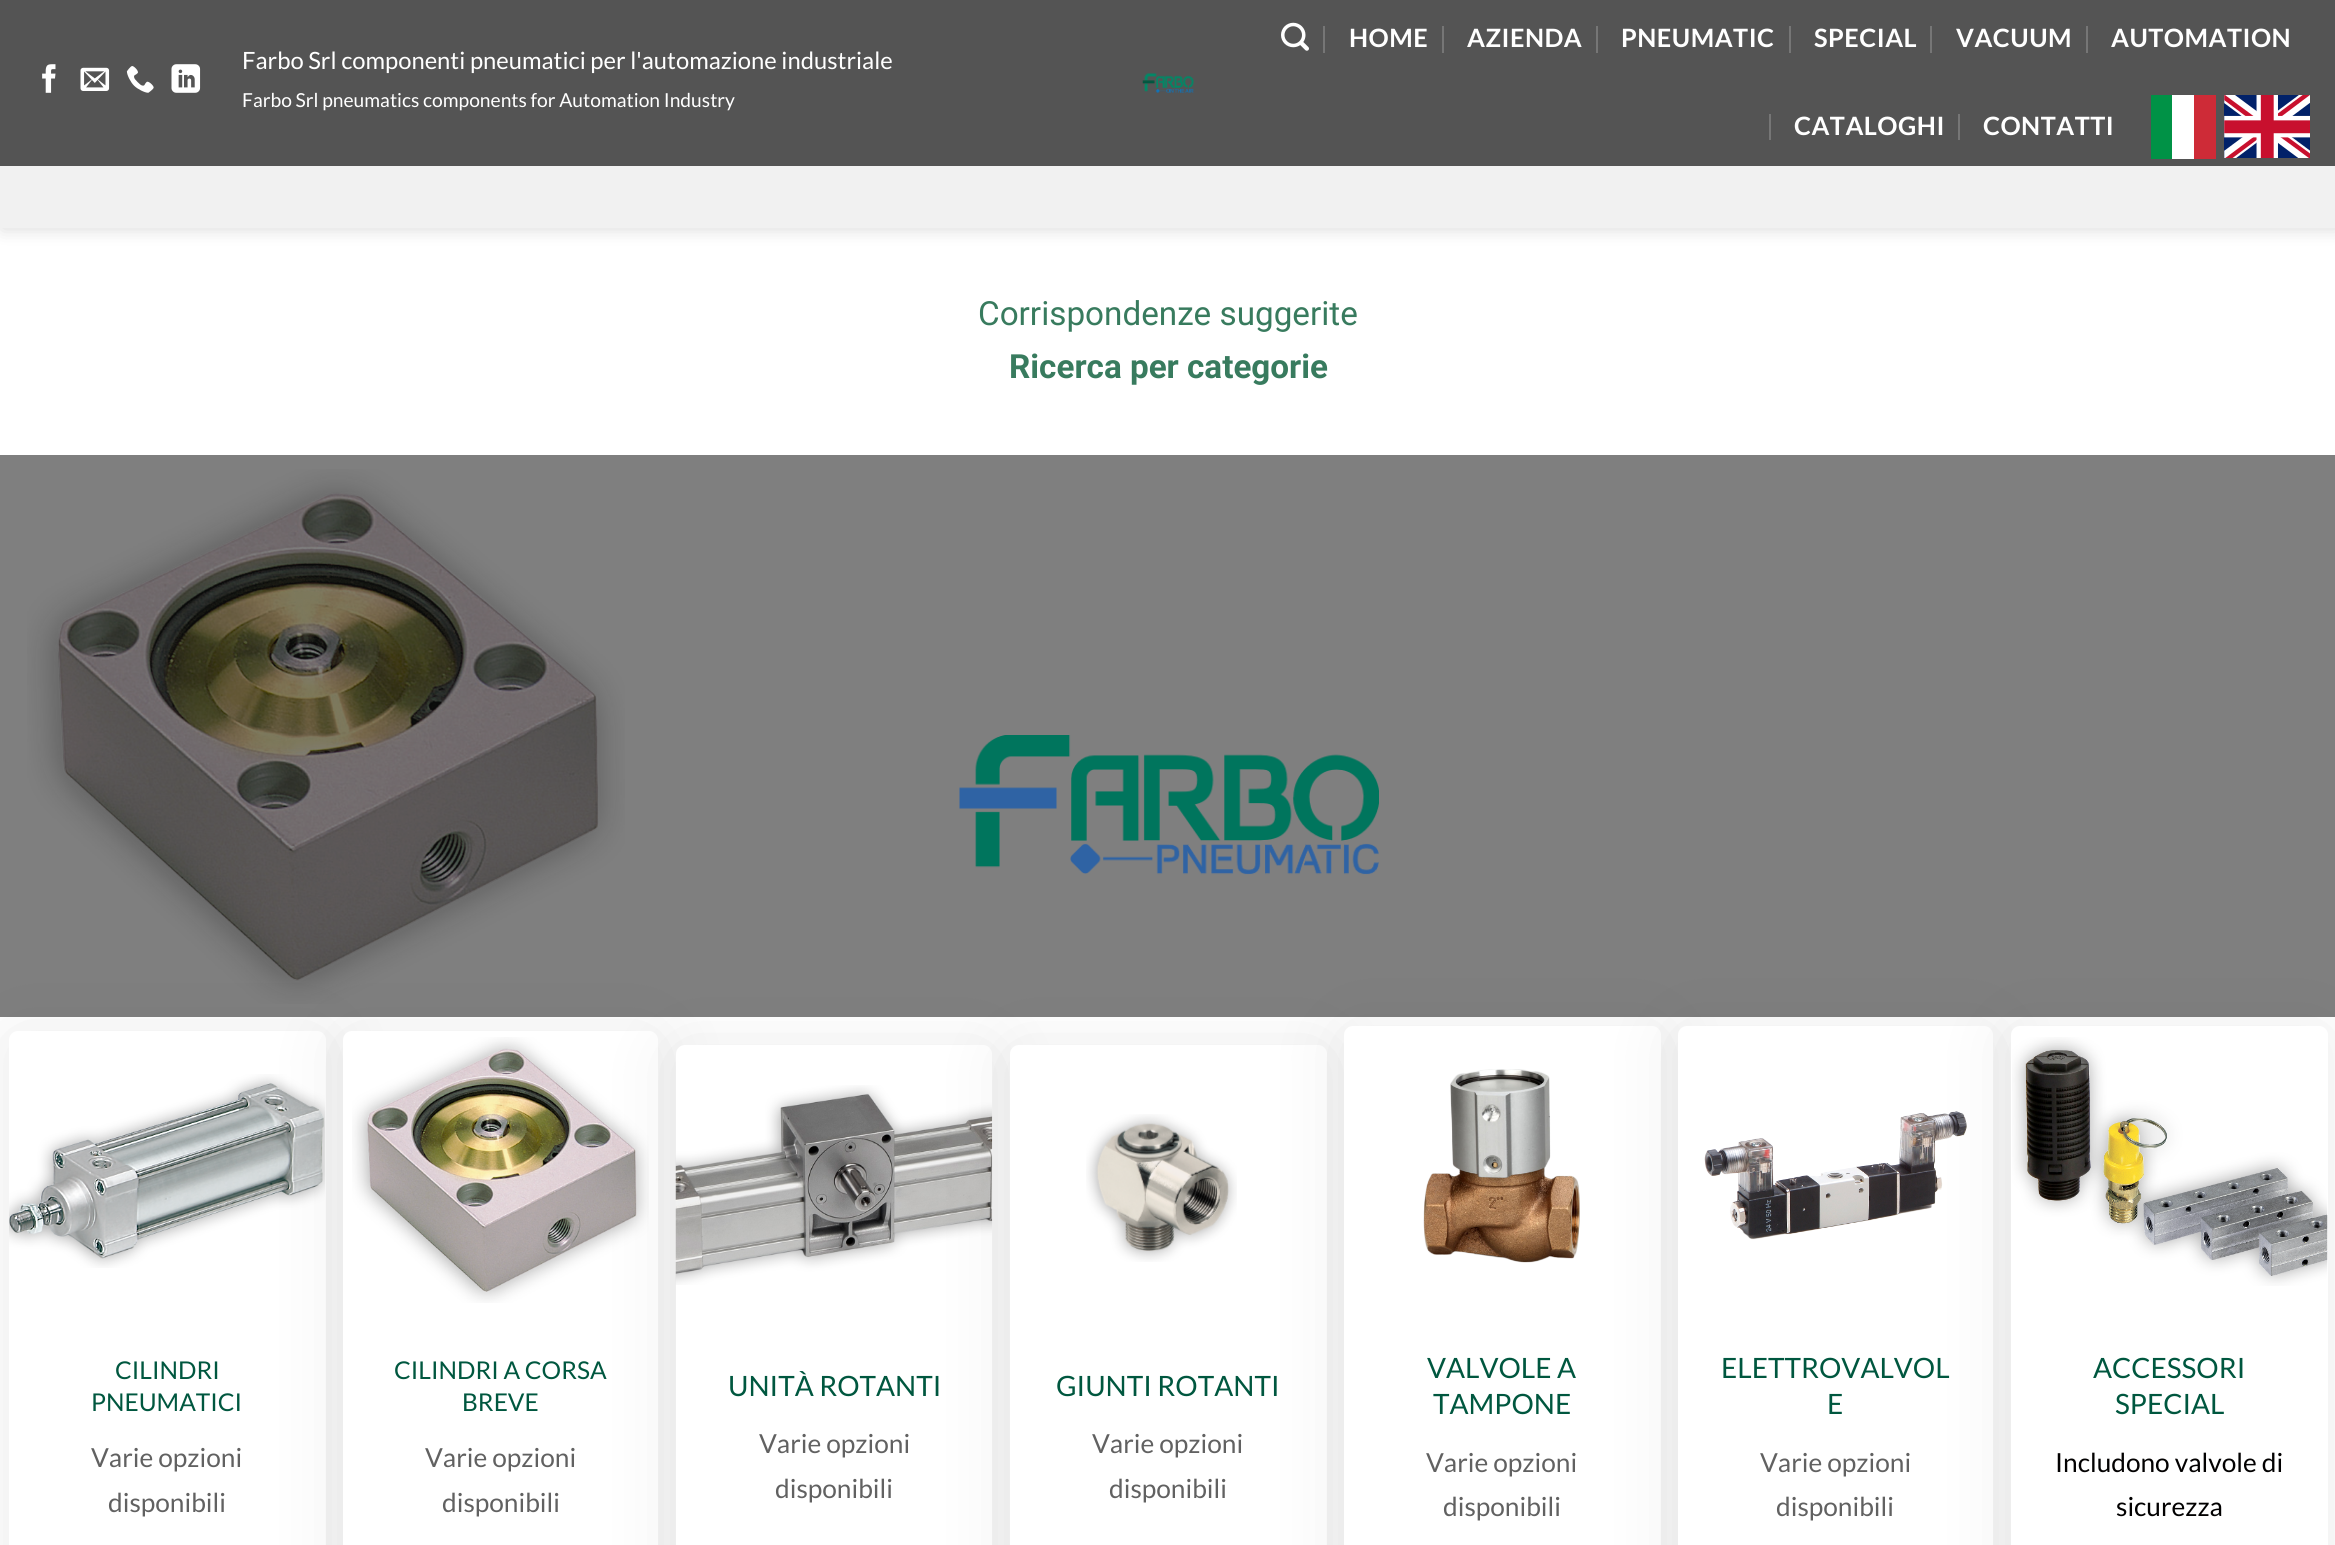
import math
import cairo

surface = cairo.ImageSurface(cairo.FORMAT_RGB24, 2335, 1545)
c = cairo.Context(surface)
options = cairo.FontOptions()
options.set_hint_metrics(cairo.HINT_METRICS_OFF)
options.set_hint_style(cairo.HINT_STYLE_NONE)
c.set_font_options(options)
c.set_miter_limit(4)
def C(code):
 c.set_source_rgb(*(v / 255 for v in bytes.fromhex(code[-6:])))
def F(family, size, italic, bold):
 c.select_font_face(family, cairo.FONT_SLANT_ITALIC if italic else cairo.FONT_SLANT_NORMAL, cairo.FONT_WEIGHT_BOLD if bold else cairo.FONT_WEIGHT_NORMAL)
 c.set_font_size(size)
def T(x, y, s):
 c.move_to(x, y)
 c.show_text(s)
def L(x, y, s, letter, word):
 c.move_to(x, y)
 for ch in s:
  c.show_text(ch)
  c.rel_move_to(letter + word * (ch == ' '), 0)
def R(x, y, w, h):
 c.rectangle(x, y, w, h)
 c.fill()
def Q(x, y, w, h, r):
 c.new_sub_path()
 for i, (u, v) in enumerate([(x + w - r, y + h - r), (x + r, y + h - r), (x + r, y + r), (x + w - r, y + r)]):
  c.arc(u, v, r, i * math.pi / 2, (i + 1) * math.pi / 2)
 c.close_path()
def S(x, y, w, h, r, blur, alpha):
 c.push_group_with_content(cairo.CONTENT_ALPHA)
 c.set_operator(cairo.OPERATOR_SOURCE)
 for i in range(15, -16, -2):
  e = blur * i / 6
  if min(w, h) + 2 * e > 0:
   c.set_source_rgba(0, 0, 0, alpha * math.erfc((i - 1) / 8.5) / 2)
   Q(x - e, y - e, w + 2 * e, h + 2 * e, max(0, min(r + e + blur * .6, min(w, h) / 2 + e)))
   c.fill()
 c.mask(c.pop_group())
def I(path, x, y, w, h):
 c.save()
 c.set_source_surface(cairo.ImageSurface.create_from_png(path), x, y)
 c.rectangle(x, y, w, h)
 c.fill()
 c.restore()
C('ffffff')
c.paint()
C('7f7f7f')
R(0,455,2335,562)
C('000000')
S(2,2,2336,227,0,9,.15)
C('545454')
R(0,0,2335,166)
I('1.png',42,64,14,29)
I('2.png',80,67,30,24)
I('3.png',126,66,28,27)
I('4.png',171,64,30,29)
F('Lato',23.8,0,0)
C('ffffff')
T(242,69,'Farbo Srl componenti pneumatici per l\'automazione industriale')
F('Lato',19.25,0,0)
T(242,107,'Farbo Srl pneumatics components for Automation Industry')
I('5.png',1142,73,52,20)
I('6.png',1281,22,28,29)
C('767676')
R(1323,26,2,27)
F('Lato',25.25,0,1)
C('ffffff')
L(1349,47,'HOME',.5,0)
C('767676')
R(1442,26,2,27)
C('ffffff')
L(1467,47,'AZIENDA',.5,0)
C('767676')
R(1596,26,2,27)
C('ffffff')
L(1621,47,'PNEUMATIC',.5,0)
C('767676')
R(1789,26,2,27)
C('ffffff')
L(1814,47,'SPECIAL',.5,0)
C('767676')
R(1930,26,2,27)
C('ffffff')
L(1956,47,'VACUUM',.5,0)
C('767676')
R(2086,26,2,27)
C('ffffff')
L(2111,47,'AUTOMATION',.5,0)
C('767676')
R(1769,114,2,26)
C('ffffff')
L(1794,135,'CATALOGHI',.5,0)
C('767676')
R(1958,114,2,26)
C('ffffff')
L(1983,135,'CONTATTI',.5,0)
R(2172,95,22,64)
C('009246')
R(2151,95,21,64)
C('ce2b37')
R(2194,95,22,64)
I('7.png',2224,95,86,63)
C('f1f1f1')
R(0,166,2335,62)
F('Roboto',33.25,0,0)
C('387b5e')
T(978,325,'Corrispondenze suggerite')
F('Roboto',33.25,0,1)
T(1009,378,'Ricerca per categorie')
I('8.png',27,469,598,535)
I('9.png',959,735,420,140)
C('242424')
S(9,1036,317,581,9,35,.1)
C('ffffff')
Q(9,1031,317,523,9)
c.fill()
I('10.png',9,1074,317,194)
F('Lato',24.5,0,0)
C('00573f')
T(115,1379,'CILINDRI')
T(91,1411,'PNEUMATICI')
F('Lato',26.25,0,0)
C('616161')
T(91,1467,'Varie opzioni')
T(108,1512,'disponibili')
C('242424')
S(343,1036,315,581,9,35,.1)
C('ffffff')
Q(343,1031,315,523,9)
c.fill()
I('11.png',352,1037,297,266)
F('Lato',24.5,0,0)
C('00573f')
T(394,1379,'CILINDRI A CORSA')
T(462,1411,'BREVE')
F('Lato',26.25,0,0)
C('616161')
T(425,1467,'Varie opzioni')
T(442,1512,'disponibili')
C('242424')
S(676,1050,316,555,9,35,.1)
C('ffffff')
Q(676,1045,316,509,9)
c.fill()
I('12.png',675,1085,318,200)
F('Lato',28,0,0)
C('00573f')
T(728,1396,'UNITÀ ROTANTI')
F('Lato',26.25,0,0)
C('616161')
T(759,1453,'Varie opzioni')
T(775,1498,'disponibili')
C('242424')
S(1010,1050,317,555,9,35,.1)
C('ffffff')
Q(1010,1045,317,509,9)
c.fill()
I('13.png',1086,1114,151,148)
F('Lato',28,0,0)
C('00573f')
T(1056,1396,'GIUNTI ROTANTI')
F('Lato',26.25,0,0)
C('616161')
T(1092,1453,'Varie opzioni')
T(1109,1498,'disponibili')
C('242424')
S(1344,1031,317,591,9,35,.1)
C('ffffff')
Q(1344,1026,317,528,9)
c.fill()
I('14.png',1423,1069,157,194)
F('Lato',28,0,0)
C('00573f')
T(1427,1378,'VALVOLE A')
T(1433,1414,'TAMPONE')
F('Lato',26.25,0,0)
C('616161')
T(1426,1472,'Varie opzioni')
T(1443,1516,'disponibili')
C('242424')
S(1678,1031,315,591,9,35,.1)
C('ffffff')
Q(1678,1026,315,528,9)
c.fill()
I('15.png',1704,1111,263,129)
F('Lato',28,0,0)
C('00573f')
T(1721,1378,'ELETTROVALVOL')
T(1827,1414,'E')
F('Lato',26.25,0,0)
C('616161')
T(1760,1472,'Varie opzioni')
T(1776,1516,'disponibili')
C('242424')
S(2011,1031,317,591,9,35,.1)
C('ffffff')
Q(2011,1026,317,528,9)
c.fill()
I('16.png',2012,1037,316,249)
F('Lato',28,0,0)
C('00573f')
T(2093,1378,'ACCESSORI')
T(2115,1414,'SPECIAL')
F('Lato',26.25,0,0)
C('020101')
T(2055,1472,'Includono valvole di')
T(2116,1516,'sicurezza')
surface.write_to_png('o.png')
